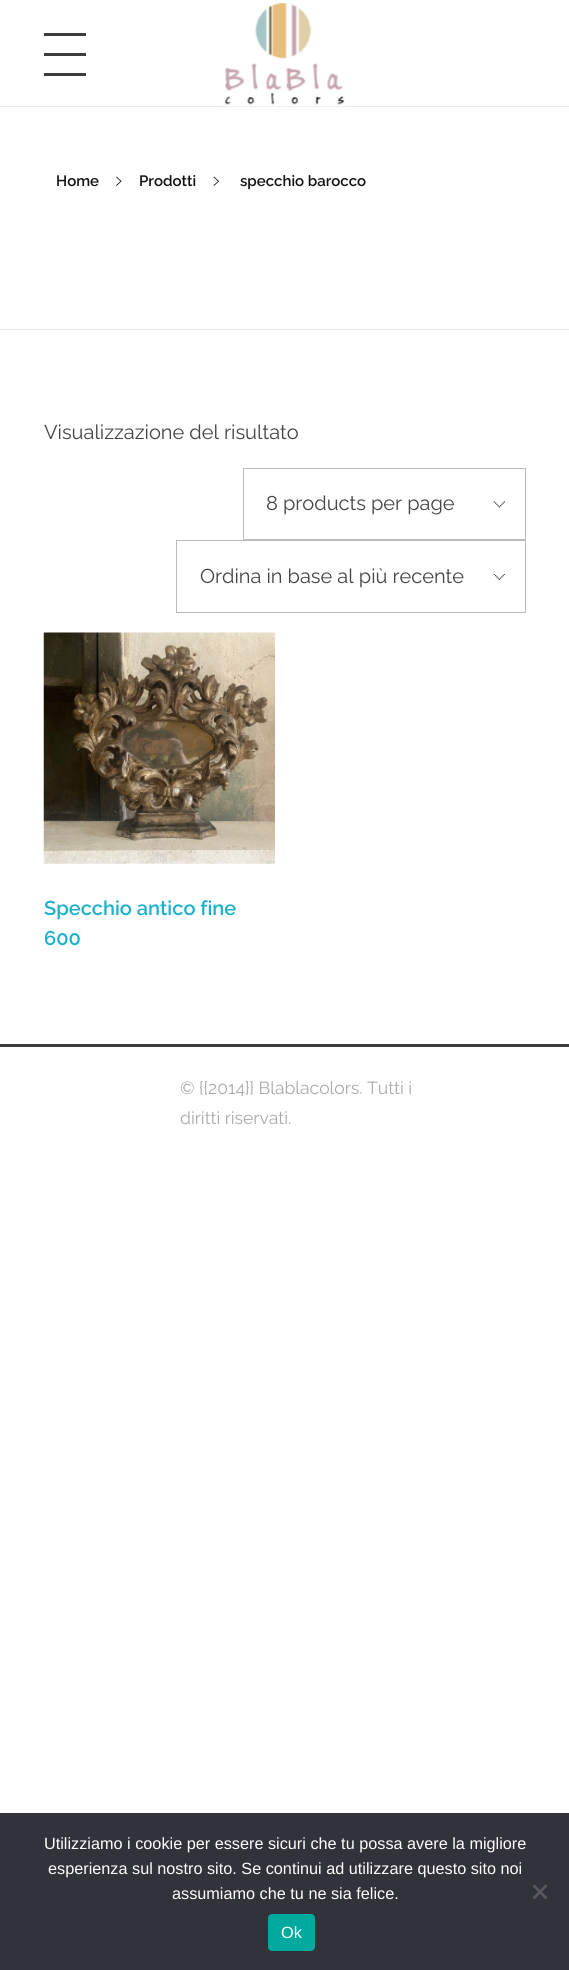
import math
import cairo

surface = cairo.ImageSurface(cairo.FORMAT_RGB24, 569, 1970)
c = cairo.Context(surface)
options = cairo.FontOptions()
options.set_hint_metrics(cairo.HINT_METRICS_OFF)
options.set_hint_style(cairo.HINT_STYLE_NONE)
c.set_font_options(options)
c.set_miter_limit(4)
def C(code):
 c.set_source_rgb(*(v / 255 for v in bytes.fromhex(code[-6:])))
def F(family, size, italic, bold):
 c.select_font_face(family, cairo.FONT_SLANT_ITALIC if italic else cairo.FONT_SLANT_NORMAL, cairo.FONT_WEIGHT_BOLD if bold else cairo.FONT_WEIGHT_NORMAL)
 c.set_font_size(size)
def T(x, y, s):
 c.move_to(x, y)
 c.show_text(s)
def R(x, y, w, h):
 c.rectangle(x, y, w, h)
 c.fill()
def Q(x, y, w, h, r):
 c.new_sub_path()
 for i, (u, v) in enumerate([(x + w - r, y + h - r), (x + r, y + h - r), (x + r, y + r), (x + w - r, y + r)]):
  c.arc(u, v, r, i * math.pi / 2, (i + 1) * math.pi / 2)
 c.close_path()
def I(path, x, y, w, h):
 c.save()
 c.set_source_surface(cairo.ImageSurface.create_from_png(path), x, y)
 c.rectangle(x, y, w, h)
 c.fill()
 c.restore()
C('ffffff')
c.paint()
C('eaeaea')
R(0,106,569,1)
C('3d3d3d')
R(44,33,42,3)
R(44,53,42,3)
R(44,73,42,3)
I('1.png',223,3,124,104)
C('eaeaea')
R(0,329,569,1)
F('Raleway SemiBold',15,0,0)
C('111111')
T(56,186,'Home')
I('2.png',116,176,6,10)
T(139,186,'Prodotti')
I('3.png',213,176,6,10)
T(240,186,'specchio barocco')
F('Raleway',20,0,0)
C('444444')
T(44,439,'Visualizzazione del risultato')
I('4.png',493,501,12,7)
c.rectangle(243.5,468.5,282,71)
C('bbbbbb')
c.set_line_width(1)
c.stroke()
C('444444')
T(266,510,'8 products per page')
I('5.png',493,574,12,6)
c.rectangle(176.5,540.5,349,72)
C('bbbbbb')
c.stroke()
C('444444')
T(200,583,'Ordina in base al più recente')
I('6.png',43,632,232,232)
F('Raleway SemiBold',20,0,0)
C('1bb0ce')
T(44,915,'Specchio antico fine')
T(44,945,'600')
C('3d3d3d')
R(0,1044,569,3)
F('Raleway',17.5,0,0)
C('aaaaaa')
T(180,1094,'© {{2014}} Blablacolors. Tutti i')
T(180,1124,'diritti riservati.')
C('32323a')
R(0,1813,569,157)
F('Liberation Sans',16.25,0,0)
C('ffffff')
T(44,1849,'Utilizziamo i cookie per essere sicuri che tu possa avere la migliore')
T(48,1874,'esperienza sul nostro sito. Se continui ad utilizzare questo sito noi')
T(172,1899,'assumiamo che tu ne sia felice.')
C('59595d')
c.new_path()
c.move_to(545.5,1884.5)
c.line_to(547.5,1886)
c.line_to(534.5,1899.5)
c.line_to(532.5,1897.5)
c.close_path()
c.fill()
c.new_path()
c.move_to(532.5,1886)
c.line_to(534.5,1884.5)
c.line_to(547.5,1897.5)
c.line_to(545.5,1899.5)
c.close_path()
c.fill()
C('00a99d')
Q(268,1914,47,37,4)
c.fill()
C('ffffff')
T(281,1938,'Ok')
surface.write_to_png('o.png')
